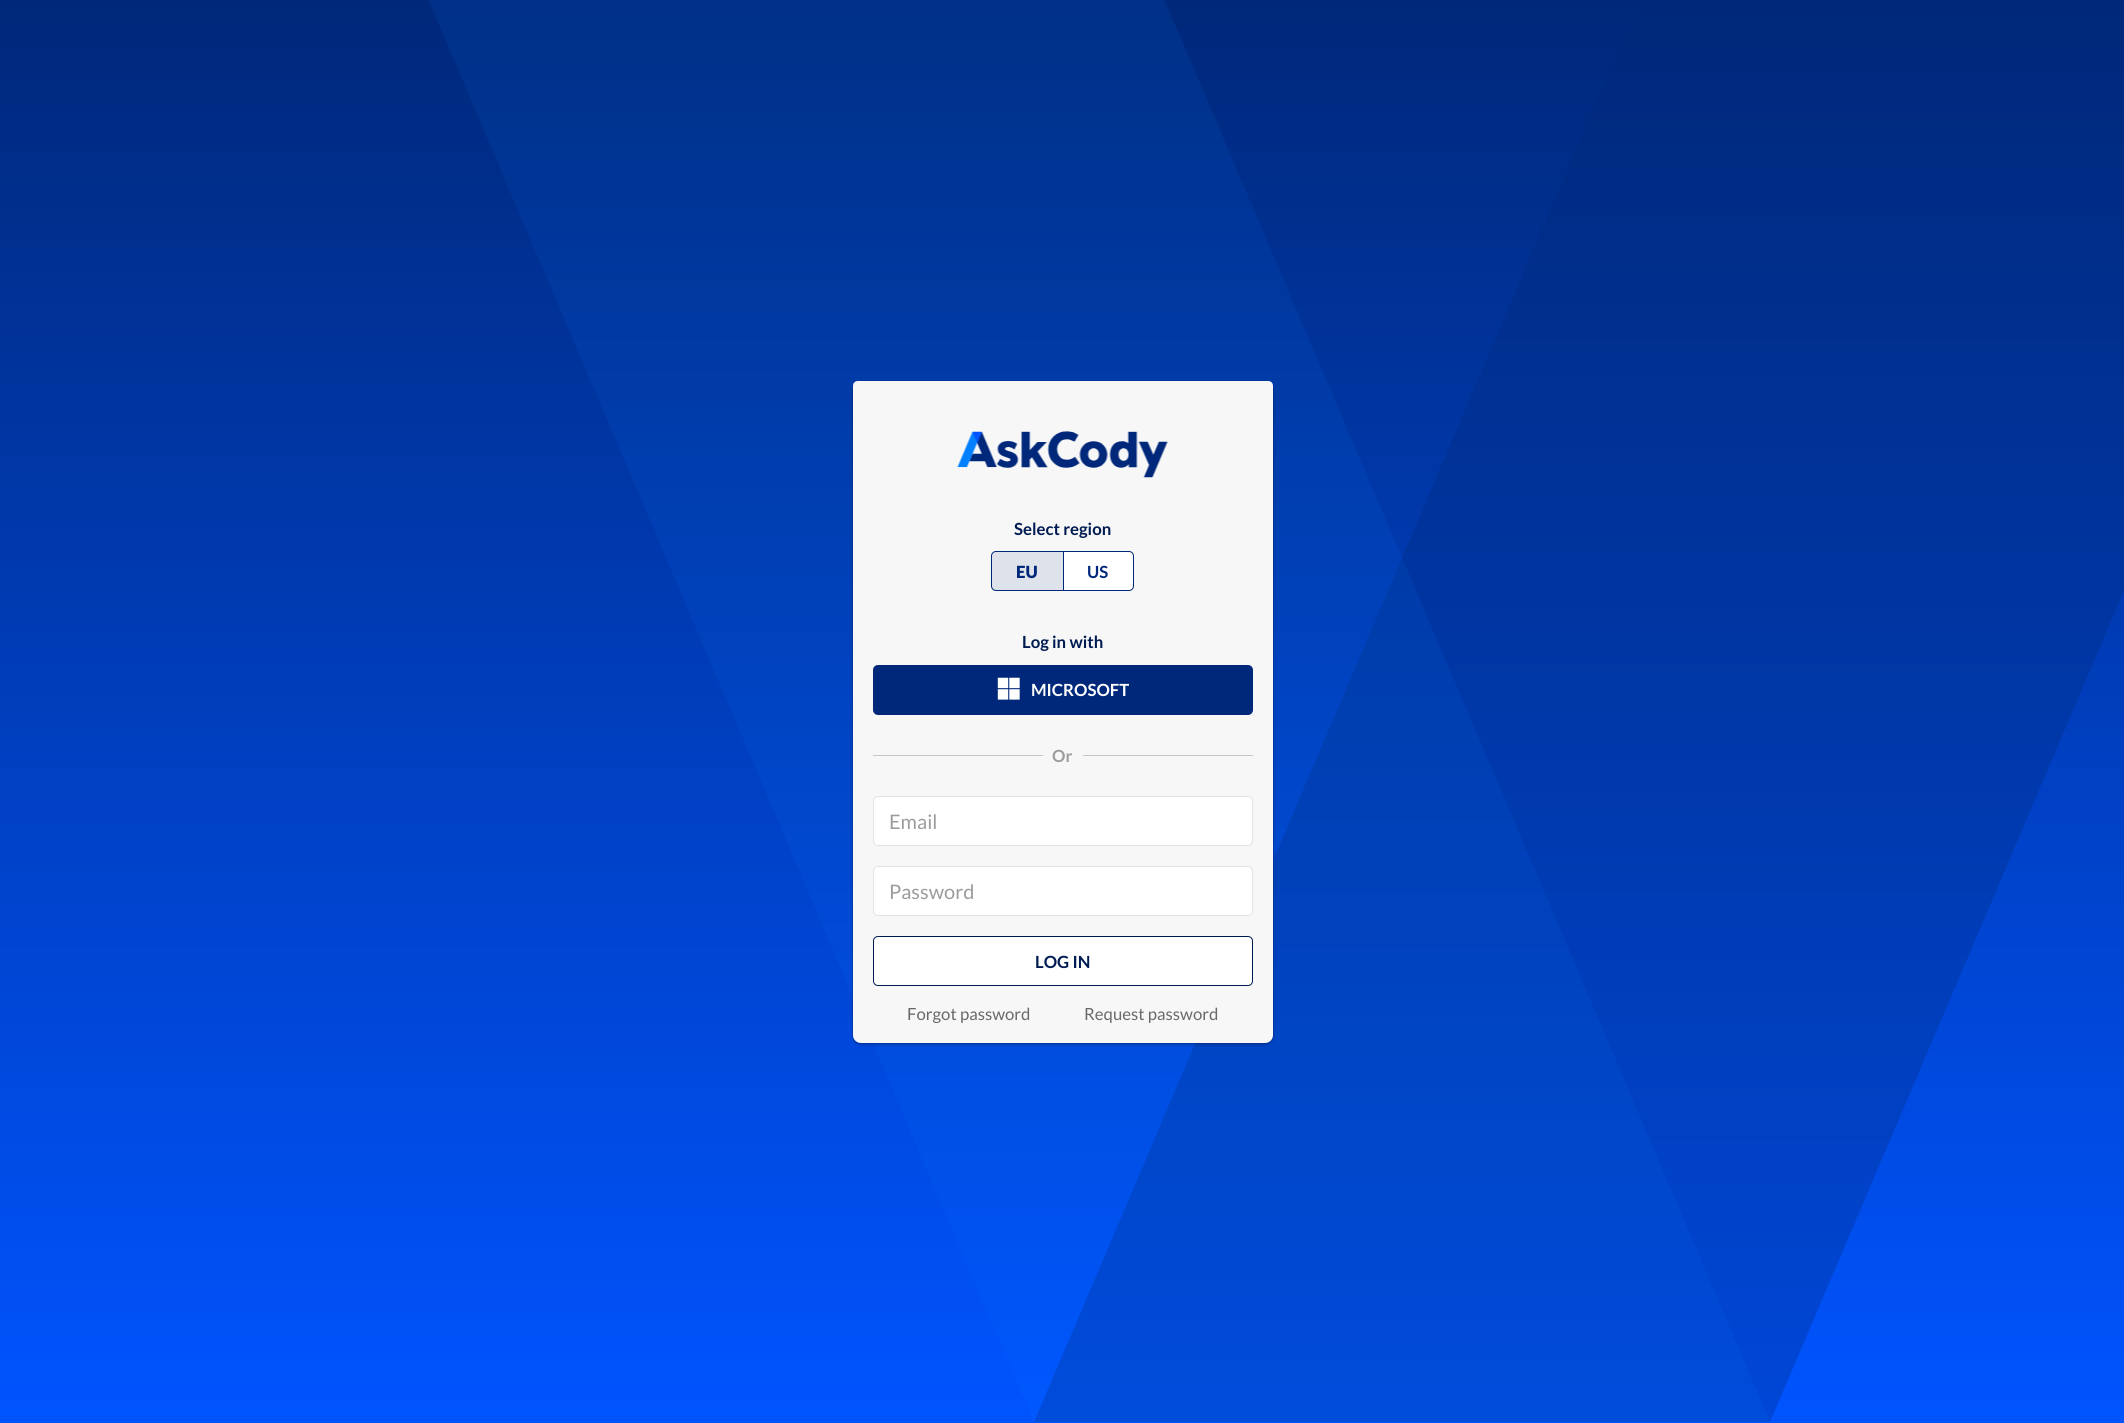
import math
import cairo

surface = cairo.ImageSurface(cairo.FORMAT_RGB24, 2124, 1423)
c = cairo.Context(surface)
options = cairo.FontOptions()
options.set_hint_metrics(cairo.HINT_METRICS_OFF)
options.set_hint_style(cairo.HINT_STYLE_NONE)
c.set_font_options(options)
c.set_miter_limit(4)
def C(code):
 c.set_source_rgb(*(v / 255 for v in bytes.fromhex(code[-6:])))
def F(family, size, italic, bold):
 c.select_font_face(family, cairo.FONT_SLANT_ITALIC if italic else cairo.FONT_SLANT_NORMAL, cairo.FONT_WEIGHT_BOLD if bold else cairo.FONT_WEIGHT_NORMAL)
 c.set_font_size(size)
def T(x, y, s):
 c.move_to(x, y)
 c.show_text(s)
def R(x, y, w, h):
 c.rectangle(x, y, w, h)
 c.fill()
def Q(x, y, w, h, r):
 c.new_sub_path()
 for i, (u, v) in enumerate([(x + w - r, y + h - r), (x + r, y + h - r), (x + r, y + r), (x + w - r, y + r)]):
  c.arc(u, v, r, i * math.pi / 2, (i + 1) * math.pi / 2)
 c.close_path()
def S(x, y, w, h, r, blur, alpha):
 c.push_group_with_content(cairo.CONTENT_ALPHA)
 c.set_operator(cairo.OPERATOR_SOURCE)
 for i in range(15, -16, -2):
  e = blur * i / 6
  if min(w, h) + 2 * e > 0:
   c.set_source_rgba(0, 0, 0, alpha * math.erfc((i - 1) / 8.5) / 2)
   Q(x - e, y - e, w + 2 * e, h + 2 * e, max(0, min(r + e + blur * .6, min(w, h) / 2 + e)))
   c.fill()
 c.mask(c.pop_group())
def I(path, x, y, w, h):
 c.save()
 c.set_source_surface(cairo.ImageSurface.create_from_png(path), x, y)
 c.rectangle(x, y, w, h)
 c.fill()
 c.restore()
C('ffffff')
c.paint()
gradient = cairo.LinearGradient(1063,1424,1063,0)
gradient.add_color_stop_rgba(0,0,0.329,1,1)
gradient.add_color_stop_rgba(1,0,0.157,0.478,1)
c.set_source(gradient)
R(0,0,2124,1423)
c.set_source_rgba(0,0.157,0.478,0.3)
c.set_fill_rule(cairo.FILL_RULE_EVEN_ODD)
c.new_path()
c.move_to(1786,-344)
c.line_to(1034,1422)
c.line_to(1770,1422)
c.line_to(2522,-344)
c.close_path()
c.fill()
c.set_source_rgba(0,0.502,1,0.1)
c.new_path()
c.move_to(1018,-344)
c.line_to(282,-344)
c.line_to(1034,1422)
c.line_to(1770,1422)
c.close_path()
c.fill()
C('000000')
S(853,383,420,661,8,2,.2)
S(853,384,420,661,8,1,.12)
S(853,381,420,662,8,1,.14)
C('f7f7f7')
c.new_path()
c.move_to(858,381)
c.line_to(1268,381)
c.curve_to(1271,381,1273,383,1273,386)
c.line_to(1273,1035)
c.curve_to(1273,1039.5,1269.5,1043,1265,1043)
c.line_to(861,1043)
c.curve_to(856.5,1043,853,1039.5,853,1035)
c.line_to(853,386)
c.curve_to(853,383,855,381,858,381)
c.close_path()
c.fill()
I('1.png',957,431,211,47)
F('Lato',16.75,0,1)
C('001b52')
T(1014,535,'Select region')
C('dee2ea')
c.new_path()
c.move_to(996,551.5)
c.line_to(1063.5,551.5)
c.line_to(1063.5,590.5)
c.line_to(996,590.5)
c.curve_to(993.5,590.5,991.5,588.5,991.5,586)
c.line_to(991.5,556)
c.curve_to(991.5,553.5,993.5,551.5,996,551.5)
c.close_path()
c.fill_preserve()
C('00287a')
c.set_line_width(1)
c.stroke()
F('Lato Black',16.75,0,0)
T(1016,578,'EU')
C('ffffff')
c.new_path()
c.move_to(1063.5,551.5)
c.line_to(1129,551.5)
c.curve_to(1131.5,551.5,1133.5,553.5,1133.5,556)
c.line_to(1133.5,586)
c.curve_to(1133.5,588.5,1131.5,590.5,1129,590.5)
c.line_to(1063.5,590.5)
c.close_path()
c.fill_preserve()
C('00287a')
c.stroke()
F('Lato',16.75,0,1)
T(1087,578,'US')
C('001b52')
T(1022,648,'Log in with')
C('00287a')
Q(873,665,380,50,5)
c.fill()
I('2.png',997,677,23,23)
C('ffffff')
T(1031,696,'MICROSOFT')
C('c5c5c5')
R(873,755,380,1)
C('f7f7f7')
R(1043,755,40,1)
C('9c9c9c')
T(1052,762,'Or')
C('ffffff')
Q(873.5,796.5,379,49,4.5)
c.fill_preserve()
C('e3e3e3')
c.stroke()
F('Lato',20,0,0)
C('9c9c9c')
T(889,829,'Email')
C('ffffff')
Q(873.5,866.5,379,49,4.5)
c.fill_preserve()
C('e3e3e3')
c.stroke()
C('9c9c9c')
T(889,899,'Password')
C('ffffff')
Q(873.5,936.5,379,49,4.5)
c.fill_preserve()
C('001b52')
c.stroke()
F('Lato',16.75,0,1)
T(1035,968,'LOG IN')
F('Lato',16.75,0,0)
C('696969')
T(907,1020,'Forgot password')
T(1084,1020,'Request password')
surface.write_to_png('o.png')
